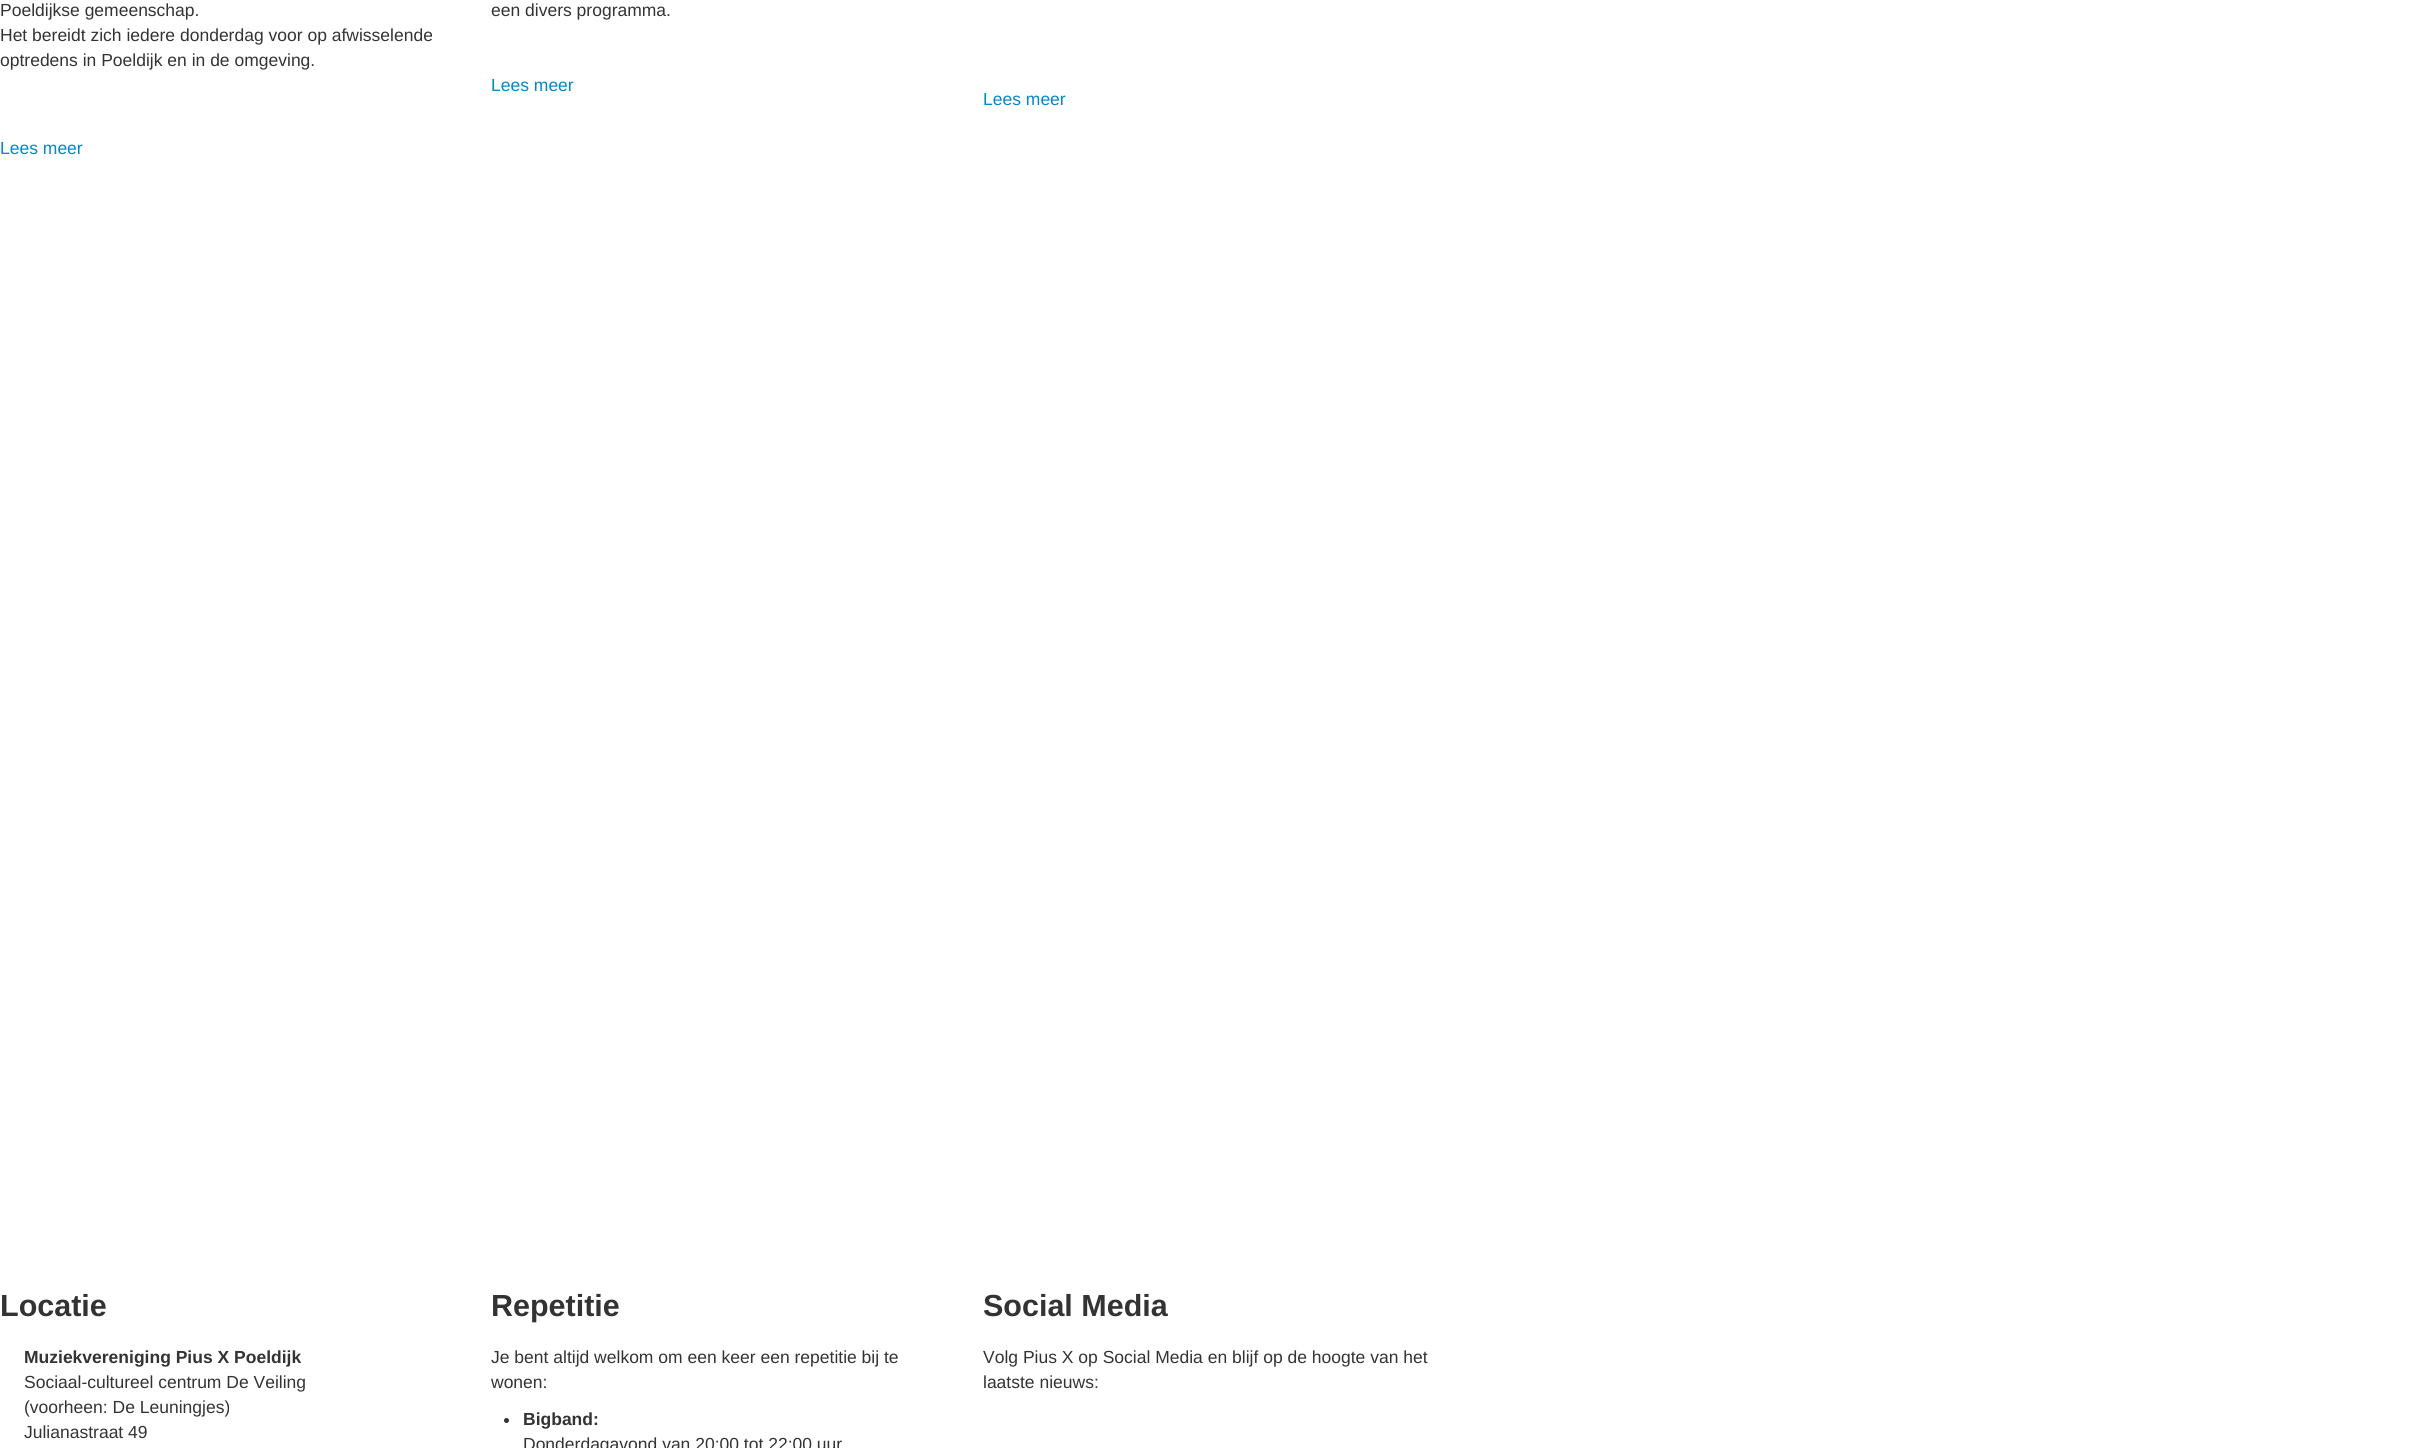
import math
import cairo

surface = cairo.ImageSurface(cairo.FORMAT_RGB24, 2422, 1448)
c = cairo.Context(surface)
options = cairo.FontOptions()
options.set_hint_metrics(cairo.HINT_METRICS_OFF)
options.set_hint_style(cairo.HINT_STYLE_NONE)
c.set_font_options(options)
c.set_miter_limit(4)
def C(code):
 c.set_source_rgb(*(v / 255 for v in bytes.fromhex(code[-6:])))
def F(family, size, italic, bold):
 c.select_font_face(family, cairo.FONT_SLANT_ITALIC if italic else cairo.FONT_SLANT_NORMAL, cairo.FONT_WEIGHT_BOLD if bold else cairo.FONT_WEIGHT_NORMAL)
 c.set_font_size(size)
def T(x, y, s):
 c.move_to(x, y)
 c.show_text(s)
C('ffffff')
c.paint()
F('Liberation Sans',17.5,0,0)
C('333333')
T(0,16,'Poeldijkse gemeenschap.')
T(0,41,'Het bereidt zich iedere donderdag voor op afwisselende')
T(0,66,'optredens in Poeldijk en in de omgeving.')
C('0088cc')
T(0,154,'Lees meer')
C('333333')
T(491,16,'een divers programma.')
C('0088cc')
T(491,91,'Lees meer')
T(983,105,'Lees meer')
F('Liberation Sans',30.5,0,1)
C('333333')
T(0,1316,'Locatie')
F('Liberation Sans',17.5,0,1)
T(24,1363,'Muziekvereniging Pius X Poeldijk')
F('Liberation Sans',17.5,0,0)
T(24,1388,'Sociaal-cultureel centrum De Veiling')
T(24,1413,'(voorheen: De Leuningjes)')
T(24,1438,'Julianastraat 49')
F('Liberation Sans',30.5,0,1)
T(491,1316,'Repetitie')
F('Liberation Sans',17.5,0,0)
T(491,1363,'Je bent altijd welkom om een keer een repetitie bij te')
T(491,1388,'wonen:')
c.new_path()
c.arc(506.5,1420.5,2.5,0,2 * math.pi)
c.fill()
F('Liberation Sans',17.5,0,1)
T(523,1425,'Bigband:')
F('Liberation Sans',17.5,0,0)
T(523,1450,'Donderdagavond van 20:00 tot 22:00 uur')
F('Liberation Sans',30.5,0,1)
T(983,1316,'Social Media')
F('Liberation Sans',17.5,0,0)
T(983,1363,'Volg Pius X op Social Media en blijf op de hoogte van het')
T(983,1388,'laatste nieuws:')
surface.write_to_png('o.png')
